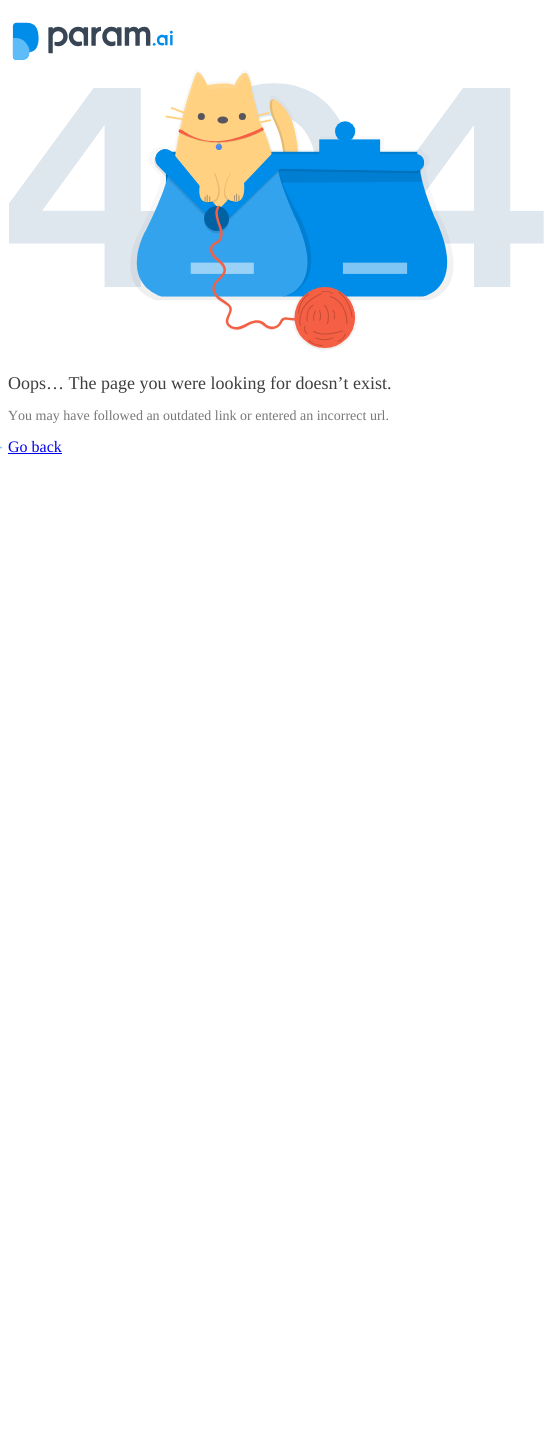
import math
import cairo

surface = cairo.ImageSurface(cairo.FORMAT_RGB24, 559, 1445)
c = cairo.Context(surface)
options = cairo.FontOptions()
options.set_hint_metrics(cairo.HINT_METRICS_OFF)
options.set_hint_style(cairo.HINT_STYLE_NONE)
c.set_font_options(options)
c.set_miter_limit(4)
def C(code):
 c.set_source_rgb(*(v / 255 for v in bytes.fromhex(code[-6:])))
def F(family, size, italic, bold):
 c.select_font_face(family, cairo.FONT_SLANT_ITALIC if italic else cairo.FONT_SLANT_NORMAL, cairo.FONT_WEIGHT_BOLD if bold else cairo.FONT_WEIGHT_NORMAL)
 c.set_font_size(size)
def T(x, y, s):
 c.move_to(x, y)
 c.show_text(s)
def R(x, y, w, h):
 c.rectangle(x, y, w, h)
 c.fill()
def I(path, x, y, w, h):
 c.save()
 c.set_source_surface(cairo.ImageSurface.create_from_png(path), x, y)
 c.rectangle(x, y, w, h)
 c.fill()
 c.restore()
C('ffffff')
c.paint()
I('1.png',12,22,161,38)
I('2.png',9,69,535,281)
F('Liberation Serif',18,0,0)
C('3e3e3e')
T(8,389,'Oops… The page you were looking for doesn’t exist.')
F('Liberation Serif',14,0,0)
C('777777')
T(8,420,'You may have followed an outdated link or entered an incorrect url.')
I('3.png',0,446,2,3)
F('Liberation Serif',16,0,0)
C('0000ee')
T(8,452,'Go back')
R(8,453,54,1)
surface.write_to_png('o.png')
